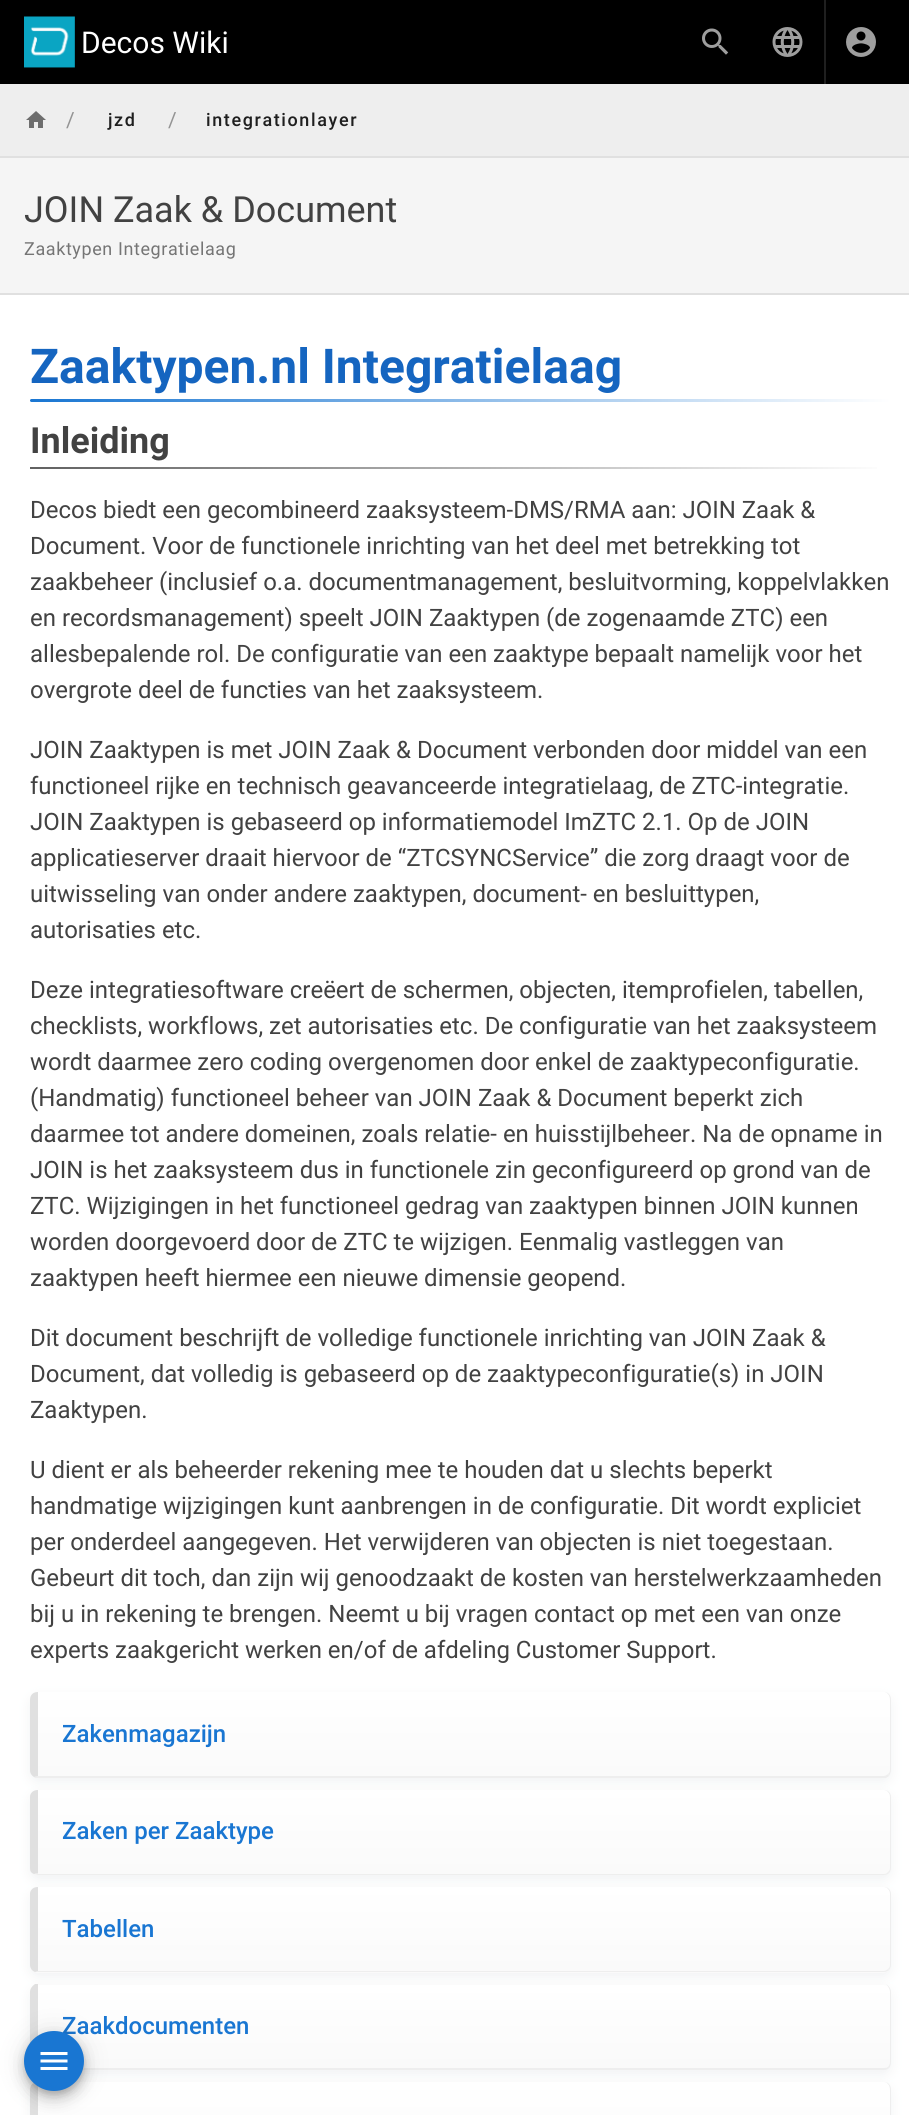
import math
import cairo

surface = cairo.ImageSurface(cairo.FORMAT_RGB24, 909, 2115)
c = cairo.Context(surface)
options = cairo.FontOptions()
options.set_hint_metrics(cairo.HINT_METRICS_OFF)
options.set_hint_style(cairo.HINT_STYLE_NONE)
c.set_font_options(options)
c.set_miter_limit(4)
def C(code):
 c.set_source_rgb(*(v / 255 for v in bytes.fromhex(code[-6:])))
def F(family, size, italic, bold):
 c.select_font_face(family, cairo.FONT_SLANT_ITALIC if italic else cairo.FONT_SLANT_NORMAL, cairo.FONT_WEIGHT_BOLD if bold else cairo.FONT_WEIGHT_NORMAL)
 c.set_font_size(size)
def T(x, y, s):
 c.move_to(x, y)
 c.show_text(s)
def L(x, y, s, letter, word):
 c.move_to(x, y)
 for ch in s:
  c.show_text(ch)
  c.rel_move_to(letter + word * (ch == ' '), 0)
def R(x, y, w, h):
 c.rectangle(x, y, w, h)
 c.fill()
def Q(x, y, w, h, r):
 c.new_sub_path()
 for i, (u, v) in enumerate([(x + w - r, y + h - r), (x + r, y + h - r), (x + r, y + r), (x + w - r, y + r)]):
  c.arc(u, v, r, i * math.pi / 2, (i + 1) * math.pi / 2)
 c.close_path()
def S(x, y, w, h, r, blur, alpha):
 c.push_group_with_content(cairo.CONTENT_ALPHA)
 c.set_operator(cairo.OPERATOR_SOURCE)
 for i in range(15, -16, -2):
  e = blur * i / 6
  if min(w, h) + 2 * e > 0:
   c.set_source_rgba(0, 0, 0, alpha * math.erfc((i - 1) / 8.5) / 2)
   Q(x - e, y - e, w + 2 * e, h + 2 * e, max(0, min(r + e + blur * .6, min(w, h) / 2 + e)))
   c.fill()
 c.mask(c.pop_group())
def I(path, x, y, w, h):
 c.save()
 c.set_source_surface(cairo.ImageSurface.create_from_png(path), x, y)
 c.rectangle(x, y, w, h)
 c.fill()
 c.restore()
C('ffffff')
c.paint()
C('000000')
R(0,0,909,84)
I('1.png',24,16,51,52)
F('Roboto',30,0,0)
C('ffffff')
T(81,53,'Decos Wiki')
I('2.png',702,28,27,27)
I('3.png',772,27,31,30)
C('1f1f1f')
R(824,0,2,84)
I('4.png',846,27,30,30)
C('eeeeee')
R(0,84,909,72)
I('5.png',26,111,20,17)
F('Roboto',21,0,0)
C('949494')
T(66,127,'/')
F('Roboto Medium',18,0,0)
C('1f1f1f')
L(108,126,'jzd',1.6,0)
F('Roboto',21,0,0)
C('949494')
T(168,127,'/')
F('Roboto Medium',18,0,0)
C('1f1f1f')
L(206,126,'integrationlayer',1.6,0)
C('e0e0e0')
R(0,156,909,2)
C('f5f5f5')
R(0,158,909,135)
F('Roboto',36,0,0)
C('424242')
T(24,222,'JOIN Zaak & Document')
F('Roboto',18,0,0)
C('757575')
L(24,255,'Zaaktypen Integratielaag',.6,0)
C('e0e0e0')
R(0,293,909,2)
F('Roboto',48,0,1)
C('1565c0')
T(30,383,'Zaaktypen.nl Integratielaag')
gradient = cairo.LinearGradient(30,401,891,401)
gradient.add_color_stop_rgba(0,0.098,0.463,0.824,1)
gradient.add_color_stop_rgba(1,1,1,1,1)
c.set_source(gradient)
Q(30,399,861,3,1.5)
c.fill()
F('Roboto',36,0,1)
C('424242')
T(30,453,'Inleiding')
gradient = cairo.LinearGradient(30,467,891,467)
gradient.add_color_stop_rgba(0,0.38,0.38,0.38,1)
gradient.add_color_stop_rgba(1,1,1,1,1)
c.set_source(gradient)
R(30,467,847,2)
F('Roboto',24,0,0)
C('424242')
T(30,518,'Decos biedt een gecombineerd zaaksysteem-DMS/RMA aan: JOIN Zaak &')
T(30,554,'Document. Voor de functionele inrichting van het deel met betrekking tot')
T(30,590,'zaakbeheer (inclusief o.a. documentmanagement, besluitvorming, koppelvlakken')
T(30,626,'en recordsmanagement) speelt JOIN Zaaktypen (de zogenaamde ZTC) een')
T(30,662,'allesbepalende rol. De configuratie van een zaaktype bepaalt namelijk voor het')
T(30,698,'overgrote deel de functies van het zaaksysteem.')
T(30,758,'JOIN Zaaktypen is met JOIN Zaak & Document verbonden door middel van een')
T(30,794,'functioneel rijke en technisch geavanceerde integratielaag, de ZTC-integratie.')
T(30,830,'JOIN Zaaktypen is gebaseerd op informatiemodel ImZTC 2.1. Op de JOIN')
T(30,866,'applicatieserver draait hiervoor de “ZTCSYNCService” die zorg draagt voor de')
T(30,902,'uitwisseling van onder andere zaaktypen, document- en besluittypen,')
T(30,938,'autorisaties etc.')
T(30,998,'Deze integratiesoftware creëert de schermen, objecten, itemprofielen, tabellen,')
T(30,1034,'checklists, workflows, zet autorisaties etc. De configuratie van het zaaksysteem')
T(30,1070,'wordt daarmee zero coding overgenomen door enkel de zaaktypeconfiguratie.')
T(30,1106,'(Handmatig) functioneel beheer van JOIN Zaak & Document beperkt zich')
T(30,1142,'daarmee tot andere domeinen, zoals relatie- en huisstijlbeheer. Na de opname in')
T(30,1178,'JOIN is het zaaksysteem dus in functionele zin geconfigureerd op grond van de')
T(30,1214,'ZTC. Wijzigingen in het functioneel gedrag van zaaktypen binnen JOIN kunnen')
T(30,1250,'worden doorgevoerd door de ZTC te wijzigen. Eenmalig vastleggen van')
T(30,1286,'zaaktypen heeft hiermee een nieuwe dimensie geopend.')
T(30,1346,'Dit document beschrijft de volledige functionele inrichting van JOIN Zaak &')
T(30,1382,'Document, dat volledig is gebaseerd op de zaaktypeconfiguratie(s) in JOIN')
T(30,1418,'Zaaktypen.')
T(30,1478,'U dient er als beheerder rekening mee te houden dat u slechts beperkt')
T(30,1514,'handmatige wijzigingen kunt aanbrengen in de configuratie. Dit wordt expliciet')
T(30,1550,'per onderdeel aangegeven. Het verwijderen van objecten is niet toegestaan.')
T(30,1586,'Gebeurt dit toch, dan zijn wij genoodzaakt de kosten van herstelwerkzaamheden')
T(30,1622,'bij u in rekening te brengen. Neemt u bij vragen contact op met een van onze')
T(30,1658,'experts zaakgericht werken en/of de afdeling Customer Support.')
C('74818d')
S(30,1697,861,85,8,6,.1)
c.save()
Q(30,1692,861,86,8)
c.clip()
gradient = cairo.LinearGradient(464,1692,464,1776)
gradient.add_color_stop_rgba(0,1,1,1,1)
gradient.add_color_stop_rgba(1,0.98,0.98,0.98,1)
c.set_source(gradient)
R(38,1692,852,84)
c.restore()
C('eeeeee')
c.new_path()
c.move_to(891,1700)
c.curve_to(891,1695,888,1692,884,1692)
c.curve_to(887,1692,890,1695,890,1700)
c.line_to(890,1770)
c.curve_to(890,1772,889,1773,888,1774)
c.line_to(889,1776)
c.curve_to(890,1774,891,1772,891,1770)
c.close_path()
c.fill()
c.new_path()
c.move_to(35,1778)
c.line_to(34,1777)
c.line_to(38,1776)
c.line_to(884,1776)
c.curve_to(885,1776,887,1775,888,1774)
c.line_to(889,1776)
c.line_to(886,1778)
c.close_path()
c.fill()
C('e0e0e0')
c.new_path()
c.move_to(38,1692)
c.curve_to(33,1692,30,1695,30,1700)
c.line_to(30,1770)
c.curve_to(30,1773,31,1775,34,1777)
c.line_to(38,1776)
c.close_path()
c.fill()
F('Roboto Medium',24,0,0)
C('1976d2')
T(62,1742,'Zakenmagazijn')
C('74818d')
S(30,1794,861,86,8,6,.1)
C('fafafa')
Q(30,1790,861,85,8)
c.fill()
c.save()
Q(30,1790,861,85,8)
c.clip()
gradient = cairo.LinearGradient(464,1790,464,1874)
gradient.add_color_stop_rgba(0,1,1,1,1)
gradient.add_color_stop_rgba(1,0.98,0.98,0.98,1)
c.set_source(gradient)
R(38,1790,852,84)
c.restore()
C('eeeeee')
c.new_path()
c.move_to(891,1868)
c.line_to(891,1797)
c.curve_to(891,1793,888,1790,884,1790)
c.curve_to(887,1790,890,1793,890,1797)
c.line_to(890,1868)
c.curve_to(890,1870,889,1871,888,1872)
c.line_to(889,1873)
c.curve_to(890,1872,891,1870,891,1868)
c.close_path()
c.fill()
c.new_path()
c.move_to(38,1873)
c.line_to(38,1874)
c.line_to(884,1874)
c.curve_to(886,1874,887,1873,888,1872)
c.line_to(889,1873)
c.curve_to(888,1874,886,1875,884,1875)
c.line_to(38,1875)
c.line_to(34,1874)
c.close_path()
c.fill()
C('e0e0e0')
c.new_path()
c.move_to(38,1790)
c.line_to(38,1873)
c.line_to(34,1874)
c.curve_to(31,1873,30,1871,30,1868)
c.line_to(30,1797)
c.curve_to(30,1793,33,1790,38,1790)
c.close_path()
c.fill()
C('1976d2')
T(62,1839,'Zaken per Zaaktype')
C('74818d')
S(30,1892,861,85,8,6,.1)
C('fafafa')
Q(30,1887,861,86,8)
c.fill()
c.save()
Q(30,1887,861,86,8)
c.clip()
gradient = cairo.LinearGradient(464,1887,464,1971)
gradient.add_color_stop_rgba(0,1,1,1,1)
gradient.add_color_stop_rgba(1,0.98,0.98,0.98,1)
c.set_source(gradient)
R(38,1887,852,84)
c.restore()
C('eeeeee')
c.new_path()
c.move_to(891,1894)
c.curve_to(891,1890,888,1887,884,1887)
c.curve_to(887,1887,890,1890,890,1894)
c.line_to(890,1965)
c.curve_to(890,1967,889,1968,888,1969)
c.line_to(889,1970)
c.curve_to(890,1969,891,1967,891,1965)
c.close_path()
c.fill()
c.new_path()
c.move_to(38,1971)
c.line_to(884,1971)
c.curve_to(885,1971,887,1970,888,1969)
c.line_to(889,1970)
c.curve_to(888,1971,886,1972,884,1972)
c.line_to(38,1972)
c.line_to(35,1972)
c.close_path()
c.fill()
C('e0e0e0')
c.new_path()
c.move_to(38,1887)
c.curve_to(33,1887,30,1890,30,1894)
c.line_to(30,1965)
c.curve_to(30,1968,32,1971,35,1972)
c.line_to(38,1971)
c.close_path()
c.fill()
C('1976d2')
T(62,1937,'Tabellen')
C('74818d')
S(30,1989,861,86,8,6,.1)
c.save()
Q(30,1985,861,85,8)
c.clip()
gradient = cairo.LinearGradient(464,1985,464,2069)
gradient.add_color_stop_rgba(0,1,1,1,1)
gradient.add_color_stop_rgba(1,0.98,0.98,0.98,1)
c.set_source(gradient)
R(38,1985,852,84)
c.restore()
C('eeeeee')
c.new_path()
c.move_to(888,2067)
c.curve_to(889,2066,890,2064,890,2062)
c.line_to(890,1992)
c.curve_to(890,1989,888,1986,886,1984)
c.curve_to(889,1986,891,1989,891,1992)
c.line_to(891,2062)
c.curve_to(891,2065,890,2067,889,2068)
c.close_path()
c.fill()
c.new_path()
c.move_to(38,2070)
c.line_to(884,2070)
c.curve_to(886,2070,888,2069,889,2068)
c.line_to(888,2067)
c.curve_to(887,2068,885,2068,884,2068)
c.line_to(40,2068)
c.line_to(34,2069)
c.close_path()
c.fill()
C('e0e0e0')
c.new_path()
c.move_to(38,1984)
c.line_to(38,2068)
c.line_to(40,2068)
c.line_to(34,2069)
c.curve_to(31,2068,30,2065,30,2062)
c.line_to(30,1992)
c.curve_to(30,1989,32,1986,35,1984)
c.close_path()
c.fill()
C('1976d2')
T(62,2034,'Zaakdocumenten')
C('74818d')
S(30,2087,861,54,8,6,.1)
c.save()
Q(30,2082,861,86,8)
c.clip()
gradient = cairo.LinearGradient(464,2082,464,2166)
gradient.add_color_stop_rgba(0,1,1,1,1)
gradient.add_color_stop_rgba(1,0.98,0.98,0.98,1)
c.set_source(gradient)
R(38,2082,852,33)
c.restore()
C('eeeeee')
c.new_path()
c.move_to(891,2090)
c.curve_to(891,2085,888,2082,884,2082)
c.curve_to(887,2082,890,2085,890,2090)
c.line_to(890,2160)
c.curve_to(890,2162,889,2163,888,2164)
c.line_to(889,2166)
c.curve_to(890,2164,891,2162,891,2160)
c.close_path()
c.fill()
C('e0e0e0')
c.new_path()
c.move_to(38,2082)
c.curve_to(33,2082,30,2085,30,2090)
c.line_to(30,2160)
c.curve_to(30,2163,31,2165,34,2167)
c.line_to(38,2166)
c.close_path()
c.fill()
C('000000')
S(24,2033,60,60,30,13.5,.12)
S(24,2040,60,60,30,7.5,.14)
S(26,2037,57,57,28.5,4,.2)
C('1976d2')
c.arc(54,2061,30,0,2 * math.pi)
c.fill()
I('6.png',40,2052,28,18)
surface.write_to_png('o.png')
